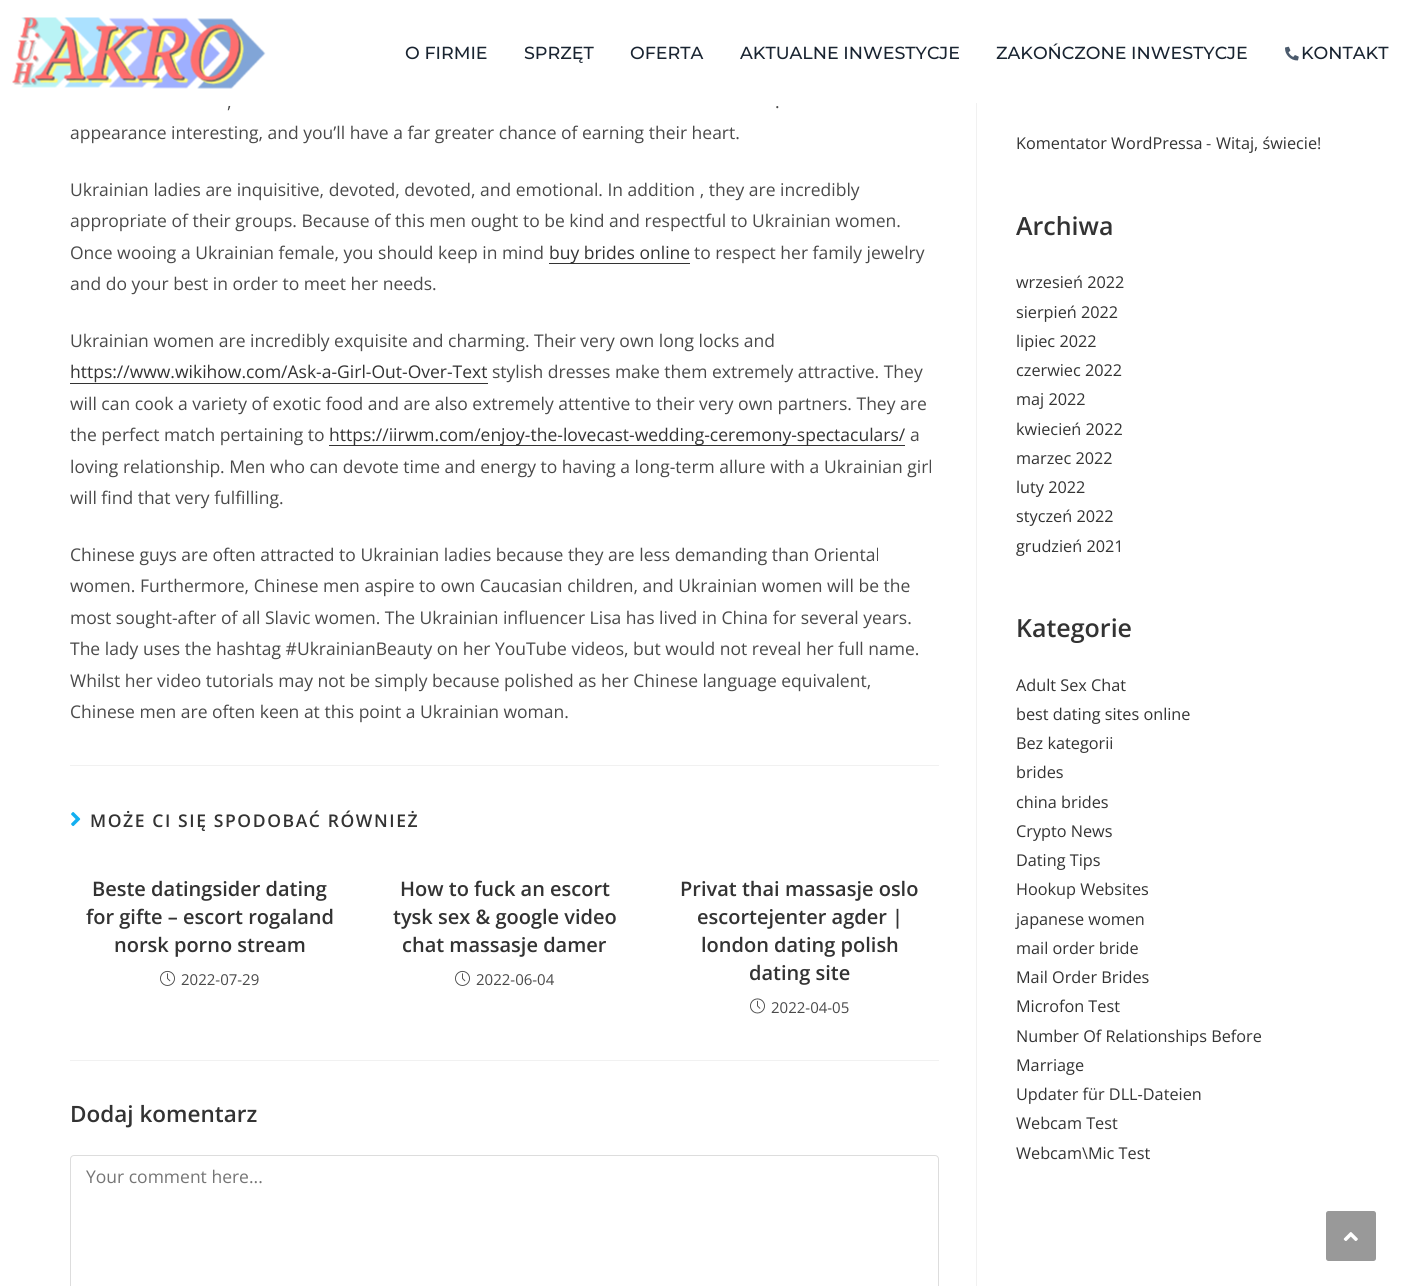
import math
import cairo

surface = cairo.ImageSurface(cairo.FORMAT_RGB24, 1401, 1286)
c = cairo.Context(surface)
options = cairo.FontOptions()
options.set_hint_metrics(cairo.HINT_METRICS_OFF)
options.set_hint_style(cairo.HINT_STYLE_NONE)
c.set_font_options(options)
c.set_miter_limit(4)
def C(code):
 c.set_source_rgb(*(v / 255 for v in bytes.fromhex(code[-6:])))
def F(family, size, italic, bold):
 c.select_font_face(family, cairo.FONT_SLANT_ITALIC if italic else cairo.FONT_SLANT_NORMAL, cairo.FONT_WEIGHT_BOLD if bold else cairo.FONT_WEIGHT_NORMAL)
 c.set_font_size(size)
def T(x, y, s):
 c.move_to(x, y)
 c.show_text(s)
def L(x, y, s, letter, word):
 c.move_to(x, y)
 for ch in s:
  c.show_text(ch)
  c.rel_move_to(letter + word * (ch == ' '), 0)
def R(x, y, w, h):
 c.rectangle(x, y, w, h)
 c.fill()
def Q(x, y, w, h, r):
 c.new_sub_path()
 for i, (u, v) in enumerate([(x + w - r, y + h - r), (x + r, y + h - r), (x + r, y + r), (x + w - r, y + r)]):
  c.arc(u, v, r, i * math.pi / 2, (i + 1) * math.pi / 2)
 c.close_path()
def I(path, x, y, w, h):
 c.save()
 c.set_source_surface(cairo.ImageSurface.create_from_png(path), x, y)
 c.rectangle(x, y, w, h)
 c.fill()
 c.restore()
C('ffffff')
c.paint()
I('1.png',12,17,254,72)
F('Montserrat Medium',17.5,0,0)
C('192431')
T(405,59,'O FIRMIE')
T(524,59,'SPRZĘT')
T(630,59,'OFERTA')
T(740,59,'AKTUALNE INWESTYCJE')
T(996,59,'ZAKOŃCZONE INWESTYCJE')
I('2.png',1285,46,14,15)
T(1301,59,'KONTAKT')
C('f1f1f1')
R(976,103,1,1183)
F('Open Sans',17.5,0,0)
C('4a4a4a')
T(227,108,',')
T(775,108,'.')
T(70,139,'appearance interesting, and you’ll have a far greater chance of earning their heart.')
T(70,196,'Ukrainian ladies are inquisitive, devoted, devoted, and emotional. In addition , they are incredibly')
T(70,227,'appropriate of their groups. Because of this men ought to be kind and respectful to Ukrainian women.')
T(70,259,'Once wooing a Ukrainian female, you should keep in mind')
C('333333')
R(549,263,141,1)
T(549,259,'buy brides online')
C('4a4a4a')
T(694,259,'to respect her family jewelry')
T(70,290,'and do your best in order to meet her needs.')
T(70,347,'Ukrainian women are incredibly exquisite and charming. Their very own long locks and')
C('333333')
T(70,378,'https://www.wikihow.com/Ask-a-Girl-Out-Over-Text')
R(70,383,418,1)
C('4a4a4a')
T(492,378,'stylish dresses make them extremely attractive. They')
T(70,410,'will can cook a variety of exotic food and are also extremely attentive to their very own partners. They are')
T(70,441,'the perfect match pertaining to')
C('333333')
R(329,445,576,1)
T(329,441,'https://iirwm.com/enjoy-the-lovecast-wedding-ceremony-spectaculars/')
C('4a4a4a')
T(910,441,'a')
T(70,473,'loving relationship. Men who can devote time and energy to having a long-term allure with a Ukrainian girl')
T(70,504,'will find that very fulfilling.')
T(70,561,'Chinese guys are often attracted to Ukrainian ladies because they are less demanding than Oriental')
T(70,592,'women. Furthermore, Chinese men aspire to own Caucasian children, and Ukrainian women will be the')
T(70,624,'most sought-after of all Slavic women. The Ukrainian influencer Lisa has lived in China for several years.')
T(70,655,'The lady uses the hashtag #UkrainianBeauty on her YouTube videos, but would not reveal her full name.')
T(70,687,'Whilst her video tutorials may not be simply because polished as her Chinese language equivalent,')
T(70,718,'Chinese men are often keen at this point a Ukrainian woman.')
C('f1f1f1')
R(70,765,869,1)
I('3.png',71,812,10,15)
F('Open Sans SemiBold',17.5,0,0)
C('333333')
L(90,827,'MOŻE CI SIĘ SPODOBAĆ RÓWNIEŻ',1.6,0)
F('Open Sans SemiBold',20,0,0)
T(92,896,'Beste datingsider dating')
T(86,924,'for gifte – escort rogaland')
T(114,952,'norsk porno stream')
I('4.png',160,970,15,16)
F('Open Sans',15,0,0)
C('4a4a4a')
T(181,985,'2022-07-29')
F('Open Sans SemiBold',20,0,0)
C('333333')
T(400,896,'How to fuck an escort')
T(393,924,'tysk sex & google video')
T(402,952,'chat massasje damer')
I('4.png',455,970,15,16)
F('Open Sans',15,0,0)
C('4a4a4a')
T(476,985,'2022-06-04')
F('Open Sans SemiBold',20,0,0)
C('333333')
T(680,896,'Privat thai massasje oslo')
T(697,924,'escortejenter agder |')
T(701,952,'london dating polish')
T(749,980,'dating site')
I('5.png',750,998,15,16)
F('Open Sans',15,0,0)
C('4a4a4a')
T(771,1013,'2022-04-05')
C('f1f1f1')
R(70,1060,869,1)
F('Open Sans SemiBold',22.5,0,0)
C('333333')
T(70,1122,'Dodaj komentarz')
Q(70.5,1155.5,868,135,3.5)
C('dddddd')
c.set_line_width(1)
c.stroke()
F('Open Sans',17.5,0,0)
C('757575')
T(86,1183,'Your comment here...')
F('Open Sans',16.25,0,0)
C('333333')
T(1016,149,'Komentator WordPressa')
C('4a4a4a')
T(1206,149,'-')
C('333333')
T(1216,149,'Witaj, świecie!')
F('Open Sans SemiBold',25,0,0)
T(1016,235,'Archiwa')
F('Open Sans',16.25,0,0)
T(1016,288,'wrzesień 2022')
T(1016,318,'sierpień 2022')
T(1016,347,'lipiec 2022')
T(1016,376,'czerwiec 2022')
T(1016,405,'maj 2022')
T(1016,435,'kwiecień 2022')
T(1016,464,'marzec 2022')
T(1016,493,'luty 2022')
T(1016,522,'styczeń 2022')
T(1016,552,'grudzień 2021')
F('Open Sans SemiBold',25,0,0)
T(1016,637,'Kategorie')
F('Open Sans',16.25,0,0)
T(1016,691,'Adult Sex Chat')
T(1016,720,'best dating sites online')
T(1016,749,'Bez kategorii')
T(1016,778,'brides')
T(1016,808,'china brides')
T(1016,837,'Crypto News')
T(1016,866,'Dating Tips')
T(1016,895,'Hookup Websites')
T(1016,925,'japanese women')
T(1016,954,'mail order bride')
T(1016,983,'Mail Order Brides')
T(1016,1012,'Microfon Test')
T(1016,1042,'Number Of Relationships Before')
T(1016,1071,'Marriage')
T(1016,1100,'Updater für DLL-Dateien')
T(1016,1129,'Webcam Test')
T(1016,1159,'Webcam\\Mic Test')
C('999999')
Q(1326,1211,50,50,2.5)
c.fill()
I('6.png',1343,1232,15,9)
surface.write_to_png('o.png')
